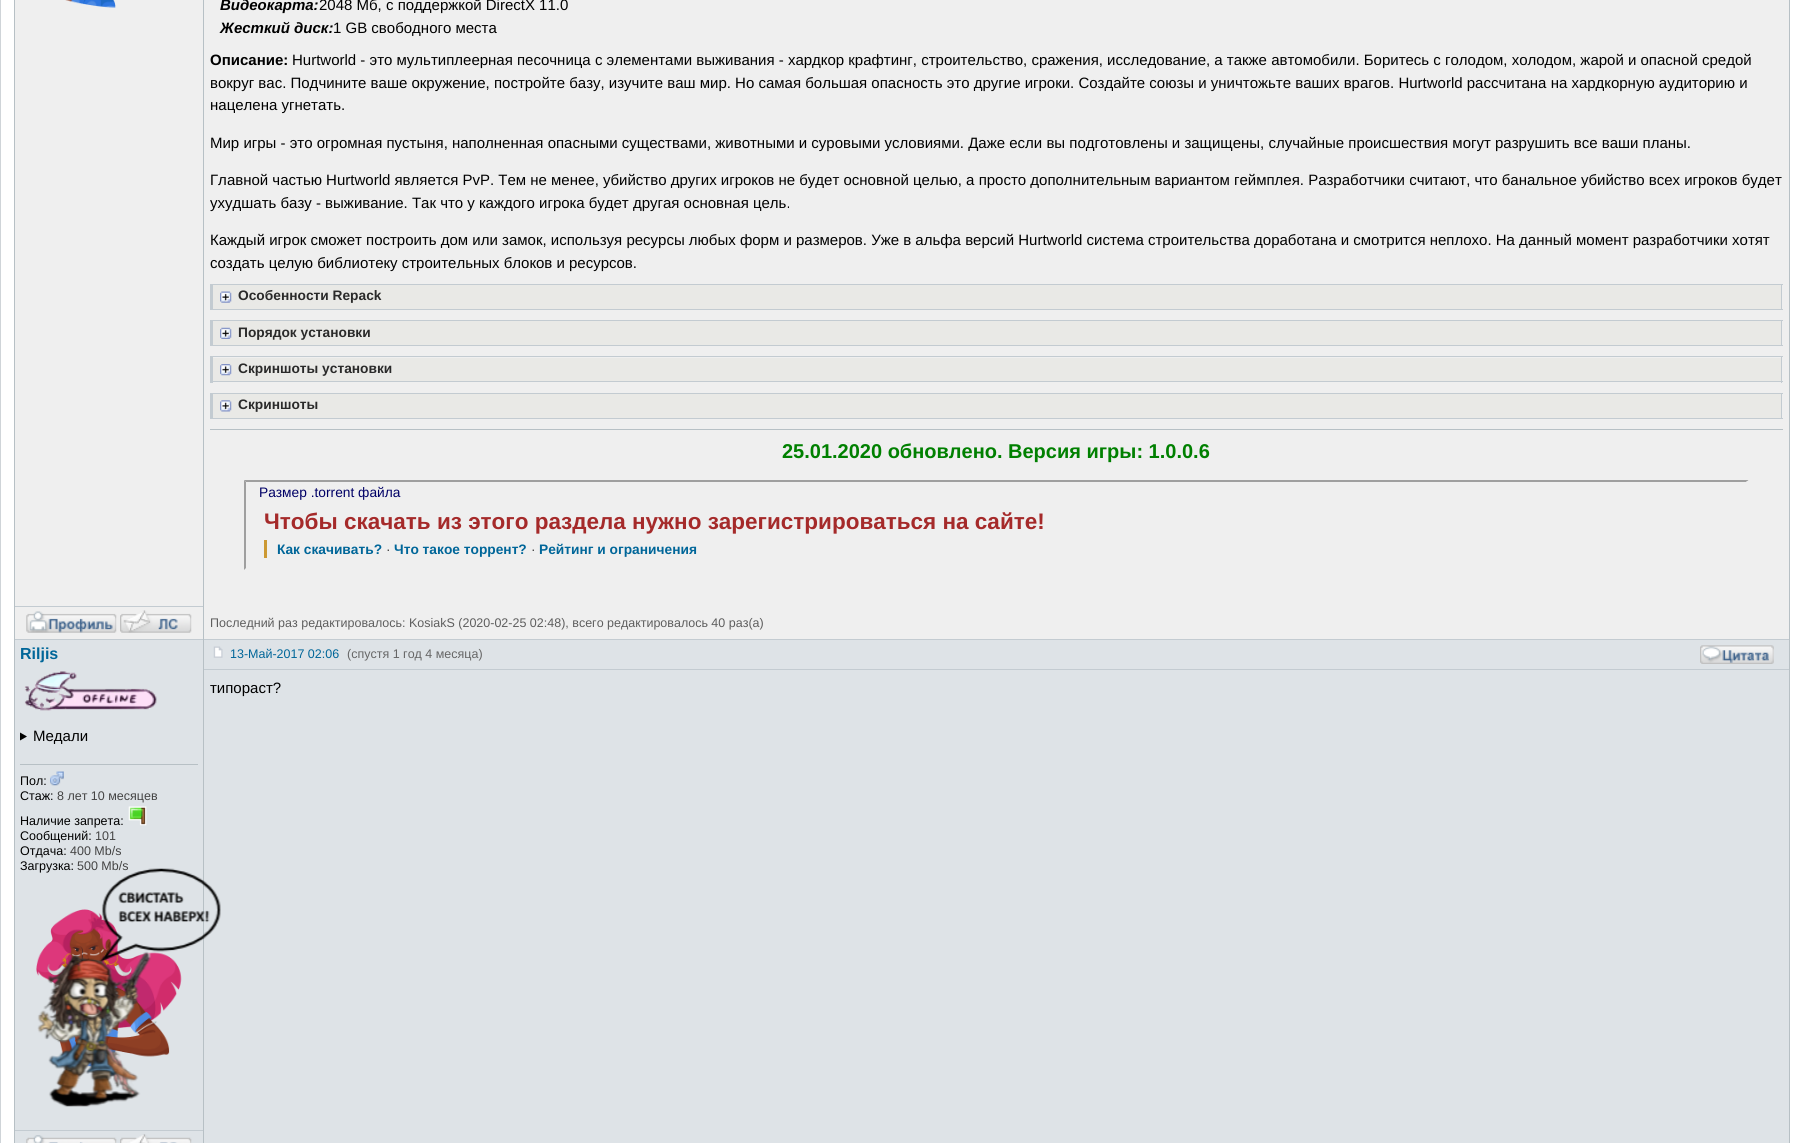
import math
import cairo

surface = cairo.ImageSurface(cairo.FORMAT_RGB24, 1803, 1143)
c = cairo.Context(surface)
options = cairo.FontOptions()
options.set_hint_metrics(cairo.HINT_METRICS_OFF)
options.set_hint_style(cairo.HINT_STYLE_NONE)
c.set_font_options(options)
c.set_miter_limit(4)
def C(code):
 c.set_source_rgb(*(v / 255 for v in bytes.fromhex(code[-6:])))
def F(family, size, italic, bold):
 c.select_font_face(family, cairo.FONT_SLANT_ITALIC if italic else cairo.FONT_SLANT_NORMAL, cairo.FONT_WEIGHT_BOLD if bold else cairo.FONT_WEIGHT_NORMAL)
 c.set_font_size(size)
def T(x, y, s):
 c.move_to(x, y)
 c.show_text(s)
def R(x, y, w, h):
 c.rectangle(x, y, w, h)
 c.fill()
def I(path, x, y, w, h):
 c.save()
 c.set_source_surface(cairo.ImageSurface.create_from_png(path), x, y)
 c.rectangle(x, y, w, h)
 c.fill()
 c.restore()
C('ffffff')
c.paint()
c.rectangle(.5,-.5,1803,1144)
C('cfd4d8')
c.set_line_width(1)
c.stroke()
C('b7c0c5')
R(1789,0,1,1143)
R(14,0,1,1143)
C('efefef')
R(15,0,1774,639)
C('c3cbd1')
R(15,606,188,1)
I('1.png',26,611,91,22)
I('2.png',120,610,72,23)
C('b7c0c5')
R(203,0,1,639)
I('3.png',65,0,51,8)
F('Liberation Sans',15,1,1)
C('000000')
T(220,10,'Видеокарта:')
F('Liberation Sans',15,0,0)
T(319,10,'2048 Мб, с поддержкой DirectX 11.0')
F('Liberation Sans',15,1,1)
T(220,33,'Жесткий диск:')
F('Liberation Sans',15,0,0)
T(333,33,'1 GB свободного места')
F('Liberation Sans',15,0,1)
T(210,65,'Описание:')
F('Liberation Sans',15,0,0)
T(292,65,'Hurtworld - это мультиплеерная песочница с элементами выживания - хардкор крафтинг, строительство, сражения, исследование, а также автомобили. Боритесь с голодом, холодом, жарой и опасной средой')
T(210,88,'вокруг вас. Подчините ваше окружение, постройте базу, изучите ваш мир. Но самая большая опасность это другие игроки. Создайте союзы и уничтожьте ваших врагов. Hurtworld рассчитана на хардкорную аудиторию и')
T(210,110,'нацелена угнетать.')
T(210,148,'Мир игры - это огромная пустыня, наполненная опасными существами, животными и суровыми условиями. Даже если вы подготовлены и защищены, случайные происшествия могут разрушить все ваши планы.')
T(210,185,'Главной частью Hurtworld является PvP. Тем не менее, убийство других игроков не будет основной целью, а просто дополнительным вариантом геймплея. Разработчики считают, что банальное убийство всех игроков будет')
T(210,208,'ухудшать базу - выживание. Так что у каждого игрока будет другая основная цель.')
T(210,245,'Каждый игрок сможет построить дом или замок, используя ресурсы любых форм и размеров. Уже в альфа версий Hurtworld система строительства доработана и смотрится неплохо. На данный момент разработчики хотят')
T(210,268,'создать целую библиотеку строительных блоков и ресурсов.')
C('e9e9e6')
R(213,285,1568,24)
C('c3cbd1')
R(210,284,1573,1)
R(1781,284,1,26)
R(210,309,1573,1)
R(210,284,3,26)
I('4.png',220,291,12,12)
F('Liberation Sans',13.75,0,1)
C('2a2a2a')
T(238,300,'Особенности Repack')
C('e9e9e6')
R(213,321,1568,24)
C('c3cbd1')
R(210,320,1573,1)
R(1781,320,1,26)
R(210,345,1573,1)
R(210,320,3,26)
I('5.png',220,327,12,12)
C('2a2a2a')
T(238,337,'Порядок установки')
C('e9e9e6')
R(213,358,1568,23)
C('c3cbd1')
R(210,356,1573,1)
R(1781,356,1,27)
R(210,381,1573,1)
R(210,356,3,27)
I('6.png',220,364,12,12)
C('2a2a2a')
T(238,373,'Скриншоты установки')
C('e9e9e6')
R(213,394,1568,24)
C('c3cbd1')
R(210,393,1573,1)
R(1781,393,1,26)
R(210,418,1573,1)
R(210,393,3,26)
I('7.png',220,400,12,12)
C('2a2a2a')
T(238,409,'Скриншоты')
C('b7c0c5')
R(210,429,1573,1)
F('Liberation Sans',20,0,1)
C('008000')
T(782,458,'25.01.2020 обновлено. Версия игры: 1.0.0.6')
C('9f9f9f')
c.new_path()
c.move_to(244,480)
c.line_to(1749,480)
c.line_to(1746,482)
c.line_to(246,482)
c.close_path()
c.fill()
C('efefef')
c.new_path()
c.move_to(1749,480)
c.line_to(1749,570)
c.line_to(1746,568)
c.line_to(1746,482)
c.close_path()
c.fill()
C('9f9f9f')
c.new_path()
c.move_to(244,570)
c.line_to(244,480)
c.line_to(246,482)
c.line_to(246,568)
c.close_path()
c.fill()
F('Liberation Sans',13.75,0,0)
C('000066')
T(259,497,'Размер .torrent файла')
F('Liberation Sans',22.5,0,1)
C('a52a2a')
T(264,529,'Чтобы скачать из этого раздела нужно зарегистрироваться на сайте!')
C('cc9933')
R(264,540,3,18)
F('Liberation Sans',13.75,0,1)
C('006699')
T(277,554,'Как скачивать?')
F('Liberation Sans',13.75,0,0)
C('444444')
T(386,554,'·')
F('Liberation Sans',13.75,0,1)
C('006699')
T(394,554,'Что такое торрент?')
F('Liberation Sans',13.75,0,0)
C('444444')
T(531,554,'·')
F('Liberation Sans',13.75,0,1)
C('006699')
T(539,554,'Рейтинг и ограничения')
F('Liberation Sans',12.5,0,0)
C('5e5e5e')
T(210,627,'Последний раз редактировалось: KosiakS (2020-02-25 02:48), всего редактировалось 40 раз(а)')
C('dee3e7')
R(15,640,1774,503)
C('c3cbd1')
R(15,639,1774,1)
C('b7c0c5')
R(203,639,1,504)
F('Liberation Sans',16,0,1)
C('006699')
T(20,659,'Riljis')
I('8.png',24,671,133,40)
C('000000')
c.new_path()
c.move_to(20,732.5)
c.line_to(27,736.5)
c.line_to(20,740.5)
c.close_path()
c.fill()
F('Liberation Sans',15,0,0)
T(33,741,'Медали')
C('b7c0c5')
R(20,764,178,1)
F('Liberation Sans',12.5,0,0)
C('000000')
T(20,785,'Пол:')
I('9.png',50,771,14,15)
T(20,800,'Стаж:')
C('444444')
T(57,800,'8 лет 10 месяцев')
C('000000')
T(20,825,'Наличие запрета:')
I('10.png',128,806,19,20)
T(20,840,'Сообщений:')
C('444444')
T(95,840,'101')
C('000000')
T(20,855,'Отдача:')
C('444444')
T(70,855,'400 Mb/s')
C('000000')
T(20,870,'Загрузка:')
C('444444')
T(77,870,'500 Mb/s')
I('11.png',36,909,146,158)
C('c3cbd1')
R(204,669,1585,1)
I('12.png',213,646,10,12)
C('006699')
T(230,658,'13-Май-2017 02:06')
C('666666')
T(347,658,'(спустя 1 год 4 месяца)')
I('13.png',1700,645,74,19)
F('Liberation Sans',15,0,0)
C('000000')
T(210,693,'типораст?')
C('c3cbd1')
R(15,1130,188,1)
I('14.png',26,1135,91,8)
I('15.png',120,1134,72,9)
I('16.png',37,868,184,239)
surface.write_to_png('o.png')
